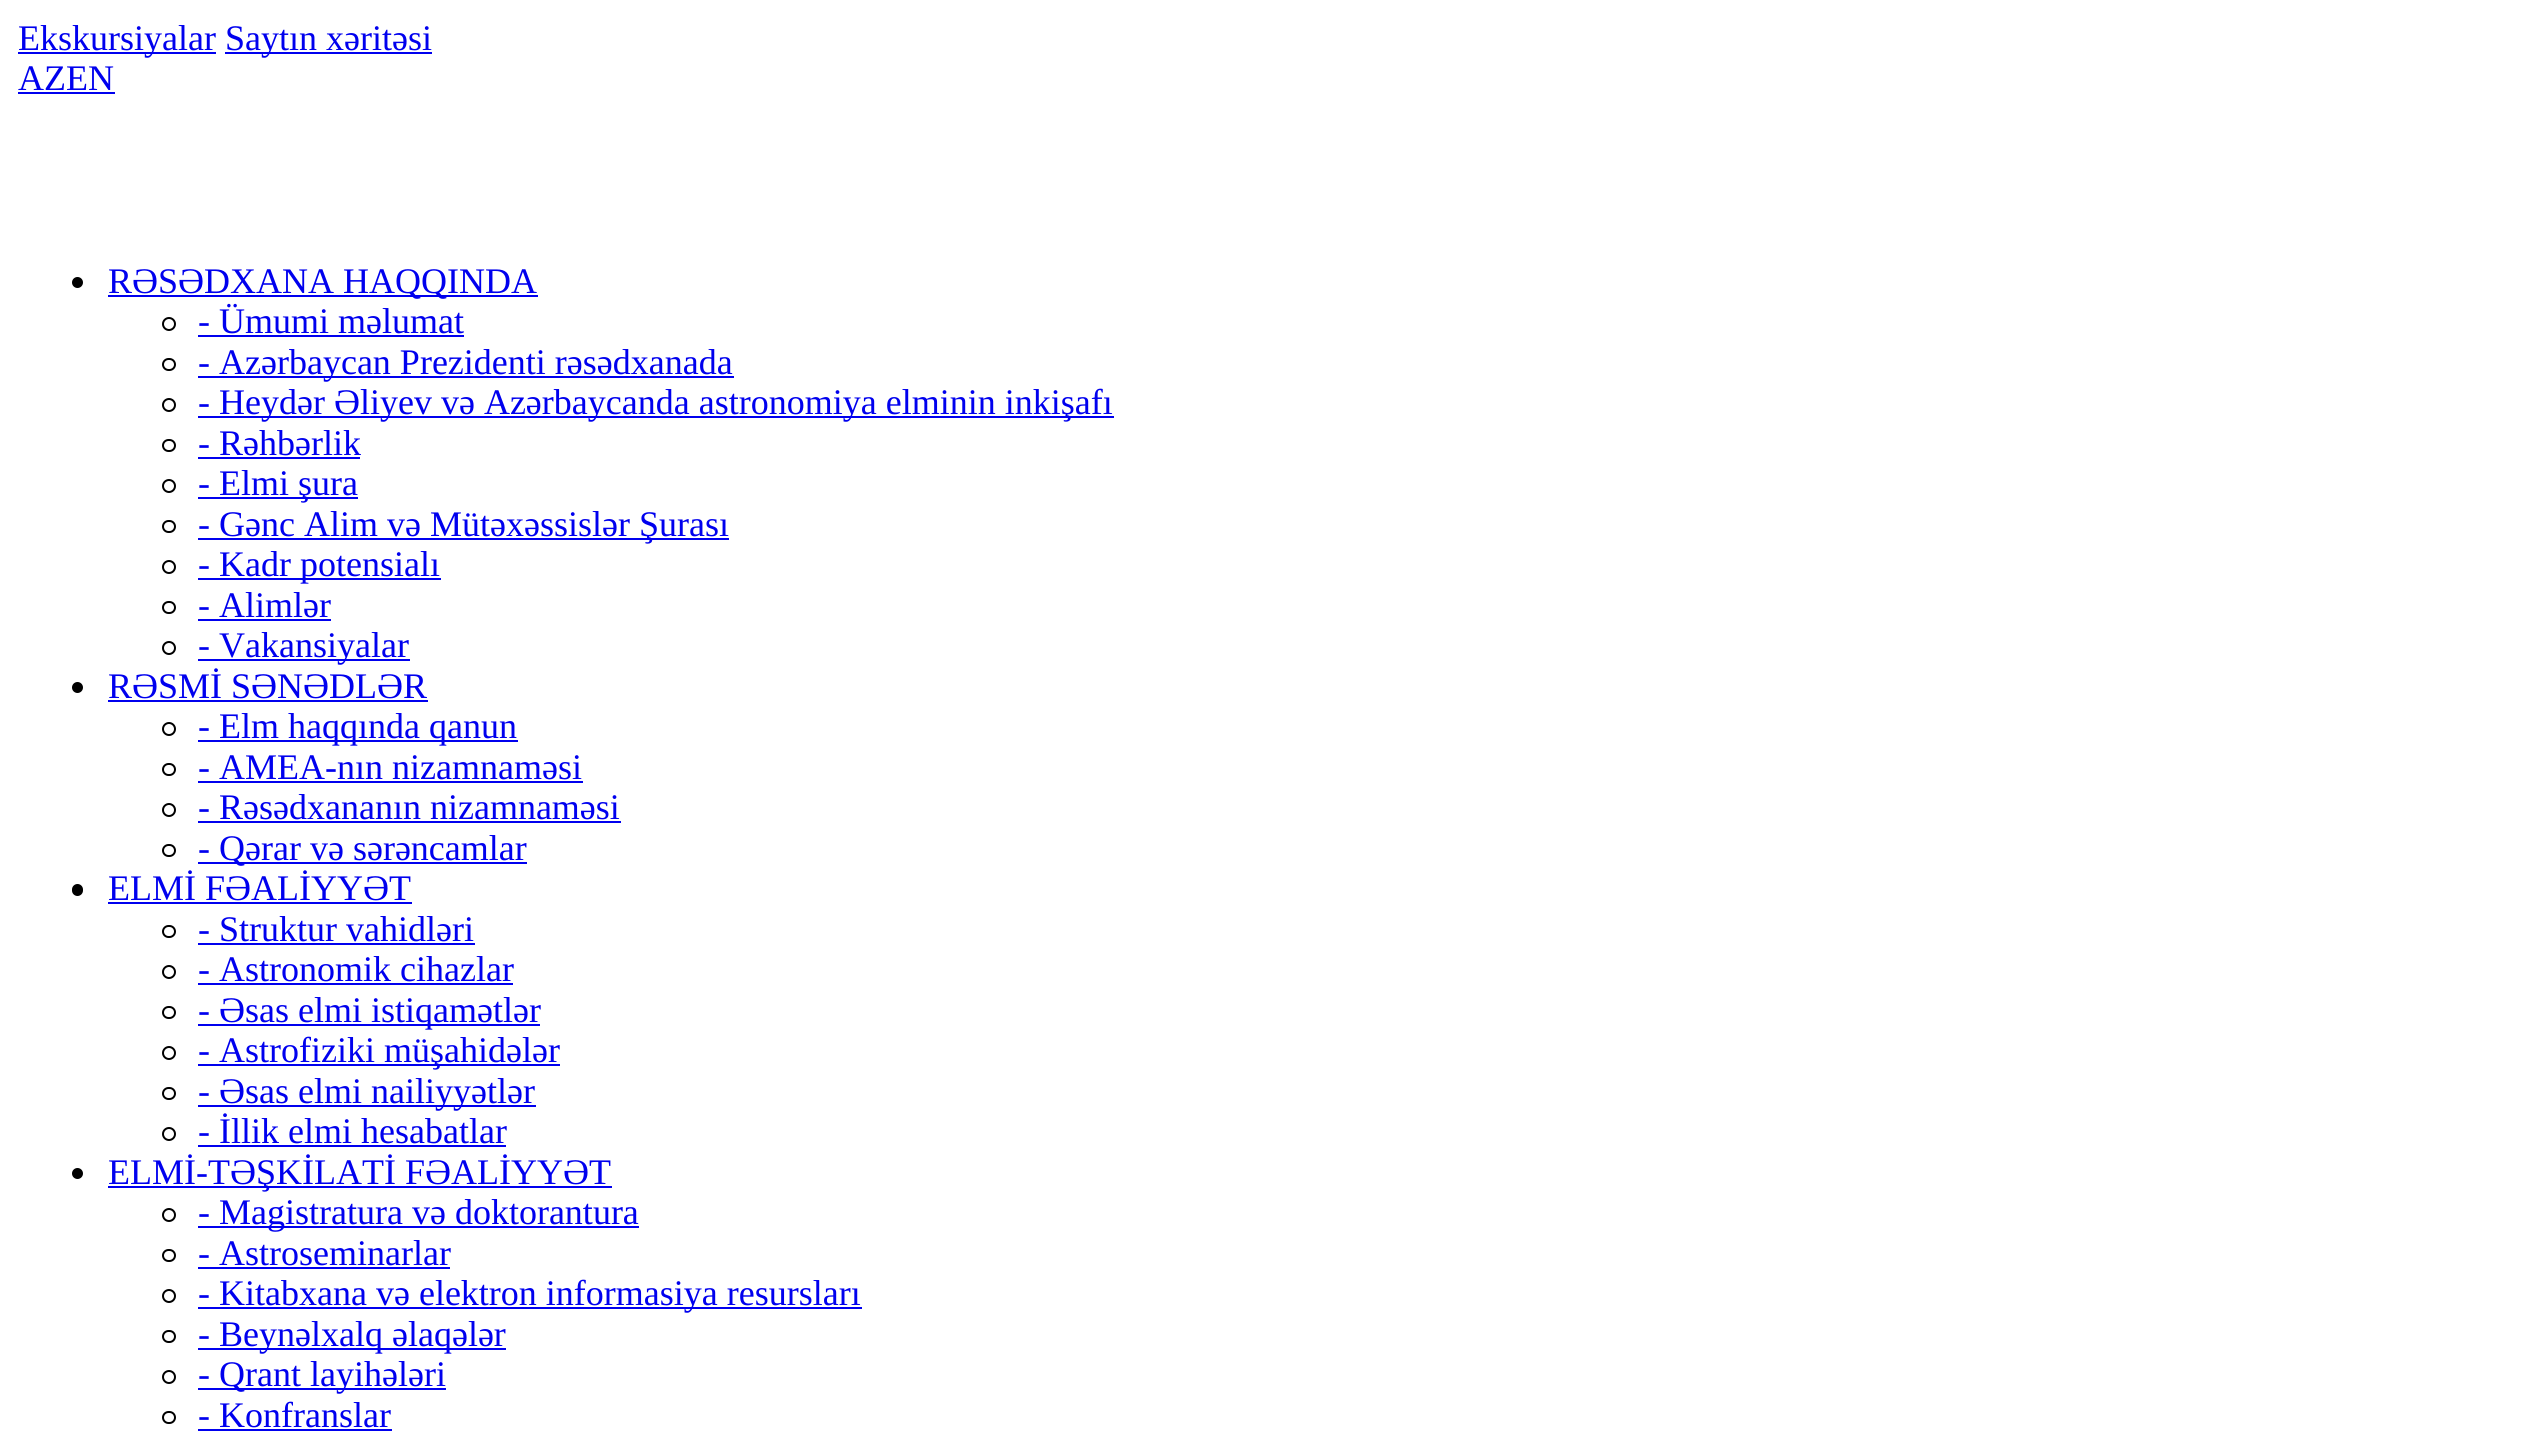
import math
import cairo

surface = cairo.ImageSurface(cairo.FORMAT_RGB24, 2543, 1441)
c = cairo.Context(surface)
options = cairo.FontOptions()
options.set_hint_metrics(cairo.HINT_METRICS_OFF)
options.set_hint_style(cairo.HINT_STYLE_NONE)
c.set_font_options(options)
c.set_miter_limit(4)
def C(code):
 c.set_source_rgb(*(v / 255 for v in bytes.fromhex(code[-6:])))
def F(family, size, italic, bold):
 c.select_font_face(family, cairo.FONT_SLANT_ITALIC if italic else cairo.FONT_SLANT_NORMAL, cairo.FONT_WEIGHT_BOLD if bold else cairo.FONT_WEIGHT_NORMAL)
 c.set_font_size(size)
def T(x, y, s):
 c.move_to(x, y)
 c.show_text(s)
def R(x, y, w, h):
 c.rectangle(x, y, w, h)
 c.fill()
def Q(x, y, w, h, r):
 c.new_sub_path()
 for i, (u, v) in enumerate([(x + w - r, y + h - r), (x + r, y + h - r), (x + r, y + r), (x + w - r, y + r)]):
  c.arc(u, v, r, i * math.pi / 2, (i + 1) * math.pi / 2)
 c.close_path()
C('ffffff')
c.paint()
C('0000ee')
R(18,52,198,2)
F('Liberation Serif',36,0,0)
T(18,50,'Ekskursiyalar')
R(225,52,207,2)
T(225,50,'Saytın xəritəsi')
T(18,90,'AZEN')
R(18,92,97,2)
C('000000')
c.new_path()
c.arc(77.5,282.5,5.5,0,2 * math.pi)
c.fill()
C('0000ee')
R(108,295,430,2)
T(108,293,'RƏSƏDXANA HAQQINDA')
c.new_path()
c.arc(169,324,6,0,2 * math.pi)
C('000000')
c.stroke()
C('0000ee')
T(198,333,'- Ümumi məlumat')
R(198,335,266,2)
Q(163,359,12,11,5.5)
C('000000')
c.stroke()
C('0000ee')
R(198,376,536,2)
T(198,374,'- Azərbaycan Prezidenti rəsədxanada')
c.new_path()
c.arc(169,405,6,0,2 * math.pi)
C('000000')
c.stroke()
C('0000ee')
R(198,416,916,2)
T(198,414,'- Heydər Əliyev və Azərbaycanda astronomiya elminin inkişafı')
Q(163,440,12,11,5.5)
C('000000')
c.stroke()
C('0000ee')
T(198,455,'- Rəhbərlik')
R(198,457,162,2)
c.new_path()
c.arc(169,486,6,0,2 * math.pi)
C('000000')
c.stroke()
C('0000ee')
R(198,497,160,2)
T(198,495,'- Elmi şura')
Q(163,521,12,11,5.5)
C('000000')
c.stroke()
C('0000ee')
R(198,538,531,2)
T(198,536,'- Gənc Alim və Mütəxəssislər Şurası')
c.new_path()
c.arc(169,567,6,0,2 * math.pi)
C('000000')
c.stroke()
C('0000ee')
R(198,578,243,2)
T(198,576,'- Kadr potensialı')
Q(163,602,12,11,5.5)
C('000000')
c.stroke()
C('0000ee')
T(198,617,'- Alimlər')
R(198,619,133,2)
c.new_path()
c.arc(169,648,6,0,2 * math.pi)
C('000000')
c.stroke()
C('0000ee')
R(198,659,212,2)
T(198,657,'- Vakansiyalar')
C('000000')
c.new_path()
c.arc(77.5,687.5,5.5,0,2 * math.pi)
c.fill()
C('0000ee')
T(108,698,'RƏSMİ SƏNƏDLƏR')
R(108,700,320,2)
c.new_path()
c.arc(169,729,6,0,2 * math.pi)
C('000000')
c.stroke()
C('0000ee')
R(198,740,320,2)
T(198,738,'- Elm haqqında qanun')
Q(163,764,12,11,5.5)
C('000000')
c.stroke()
C('0000ee')
T(198,779,'- AMEA-nın nizamnaməsi')
R(198,781,385,2)
c.new_path()
c.arc(169,810,6,0,2 * math.pi)
C('000000')
c.stroke()
C('0000ee')
T(198,819,'- Rəsədxananın nizamnaməsi')
R(198,821,423,2)
Q(163,845,12,11,5.5)
C('000000')
c.stroke()
C('0000ee')
R(198,862,329,2)
T(198,860,'- Qərar və sərəncamlar')
C('000000')
Q(72,884,11,12,5.5)
c.fill()
C('0000ee')
T(108,900,'ELMİ FƏALİYYƏT')
R(108,902,304,2)
Q(163,926,12,11,5.5)
C('000000')
c.stroke()
C('0000ee')
T(198,941,'- Struktur vahidləri')
R(198,943,277,2)
c.new_path()
c.arc(169,972,6,0,2 * math.pi)
C('000000')
c.stroke()
C('0000ee')
T(198,981,'- Astronomik cihazlar')
R(198,983,315,2)
Q(163,1007,12,11,5.5)
C('000000')
c.stroke()
C('0000ee')
R(198,1024,342,2)
T(198,1022,'- Əsas elmi istiqamətlər')
c.new_path()
c.arc(169,1053,6,0,2 * math.pi)
C('000000')
c.stroke()
C('0000ee')
R(198,1064,362,2)
T(198,1062,'- Astrofiziki müşahidələr')
Q(163,1088,12,11,5.5)
C('000000')
c.stroke()
C('0000ee')
R(198,1105,338,2)
T(198,1103,'- Əsas elmi nailiyyətlər')
c.new_path()
c.arc(169,1134,6,0,2 * math.pi)
C('000000')
c.stroke()
C('0000ee')
T(198,1143,'- İllik elmi hesabatlar')
R(198,1145,308,2)
C('000000')
c.new_path()
c.arc(77.5,1173.5,5.5,0,2 * math.pi)
c.fill()
C('0000ee')
R(108,1186,504,2)
T(108,1184,'ELMİ-TƏŞKİLATİ FƏALİYYƏT')
c.new_path()
c.arc(169,1215,6,0,2 * math.pi)
C('000000')
c.stroke()
C('0000ee')
R(198,1226,441,2)
T(198,1224,'- Magistratura və doktorantura')
Q(163,1250,12,11,5.5)
C('000000')
c.stroke()
C('0000ee')
T(198,1265,'- Astroseminarlar')
R(198,1267,252,2)
c.new_path()
c.arc(169,1296,6,0,2 * math.pi)
C('000000')
c.stroke()
C('0000ee')
R(198,1307,664,2)
T(198,1305,'- Kitabxana və elektron informasiya resursları')
Q(163,1331,12,11,5.5)
C('000000')
c.stroke()
C('0000ee')
R(198,1348,308,2)
T(198,1346,'- Beynəlxalq əlaqələr')
c.new_path()
c.arc(169,1377,6,0,2 * math.pi)
C('000000')
c.stroke()
C('0000ee')
R(198,1388,248,2)
T(198,1386,'- Qrant layihələri')
Q(163,1412,12,11,5.5)
C('000000')
c.stroke()
C('0000ee')
T(198,1427,'- Konfranslar')
R(198,1429,194,2)
surface.write_to_png('o.png')
